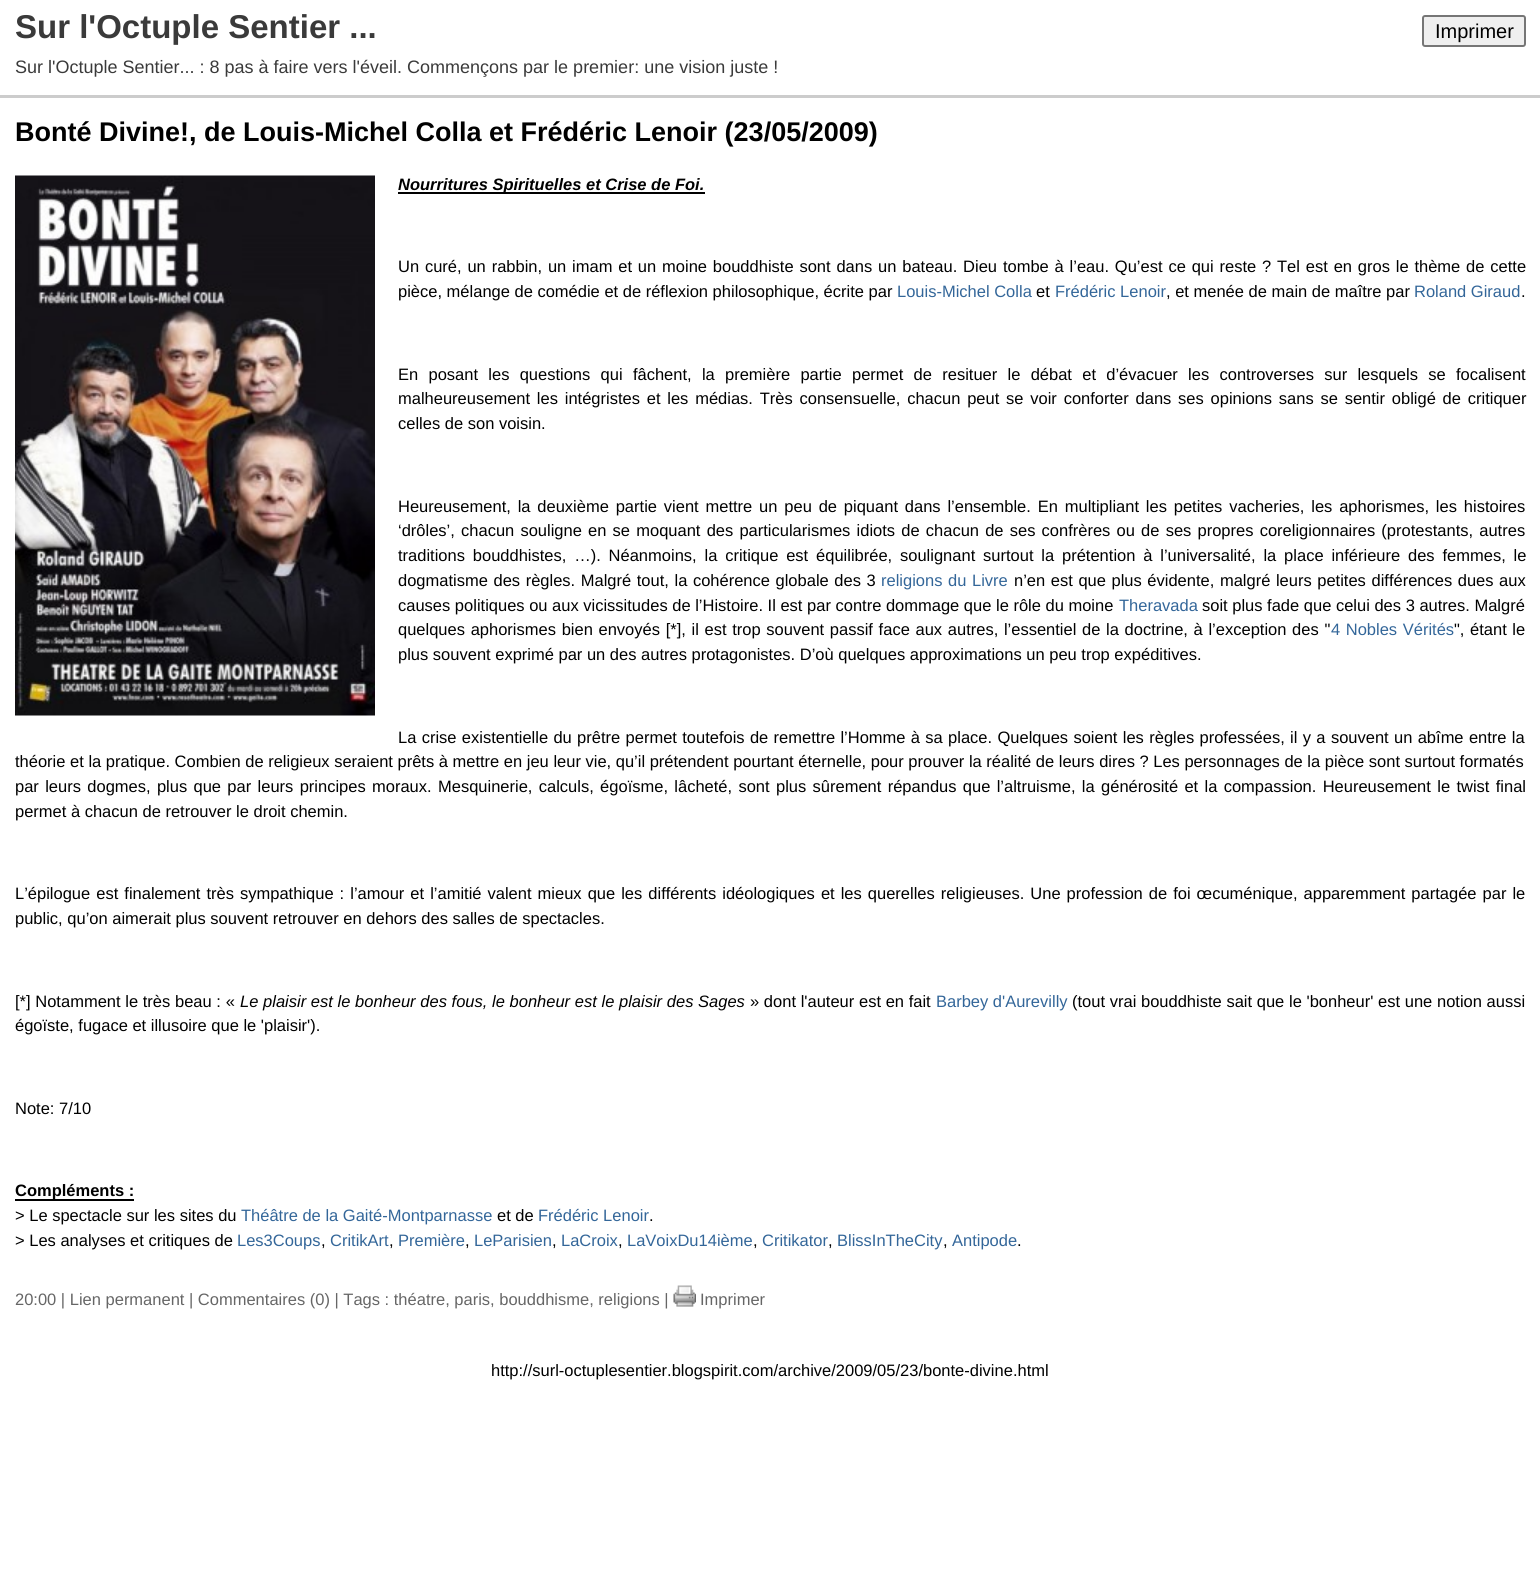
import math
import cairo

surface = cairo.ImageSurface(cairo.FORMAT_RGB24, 1540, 1583)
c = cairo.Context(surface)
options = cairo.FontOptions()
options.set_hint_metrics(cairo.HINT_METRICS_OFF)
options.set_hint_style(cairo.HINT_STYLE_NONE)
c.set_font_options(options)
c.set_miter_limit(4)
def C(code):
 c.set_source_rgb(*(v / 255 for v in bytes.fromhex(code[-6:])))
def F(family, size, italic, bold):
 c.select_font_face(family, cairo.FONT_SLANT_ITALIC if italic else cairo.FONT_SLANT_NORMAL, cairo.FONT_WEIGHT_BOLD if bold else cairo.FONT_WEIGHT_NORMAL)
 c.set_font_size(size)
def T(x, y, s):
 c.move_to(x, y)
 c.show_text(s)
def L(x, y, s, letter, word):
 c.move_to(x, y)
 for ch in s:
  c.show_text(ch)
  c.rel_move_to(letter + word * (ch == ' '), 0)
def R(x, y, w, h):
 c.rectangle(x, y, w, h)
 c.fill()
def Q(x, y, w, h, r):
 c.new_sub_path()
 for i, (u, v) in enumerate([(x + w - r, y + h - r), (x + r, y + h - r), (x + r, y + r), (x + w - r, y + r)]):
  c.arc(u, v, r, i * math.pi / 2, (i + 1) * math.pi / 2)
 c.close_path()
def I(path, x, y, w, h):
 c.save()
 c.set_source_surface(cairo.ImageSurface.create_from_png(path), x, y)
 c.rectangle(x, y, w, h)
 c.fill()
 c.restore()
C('ffffff')
c.paint()
C('cccccc')
R(0,95,1540,3)
F('Liberation Sans',33,0,1)
C('3a3a3a')
T(15,38,'Sur l\'Octuple Sentier ...')
C('efefef')
Q(1423,16,102,30,2)
c.fill_preserve()
C('767676')
c.stroke()
F('Liberation Sans',20,0,0)
C('000000')
T(1435,38,'Imprimer')
F('Liberation Sans',18,0,0)
C('3a3a3a')
T(15,73,'Sur l\'Octuple Sentier... : 8 pas à faire vers l\'éveil. Commençons par le premier: une vision juste !')
F('Liberation Sans',27,0,1)
C('000000')
T(15,141,'Bonté Divine!, de Louis-Michel Colla et Frédéric Lenoir (23/05/2009)')
I('1.png',15,175,360,541)
R(398,192,307,2)
F('Liberation Sans',16.5,1,1)
T(398,190,'Nourritures Spirituelles et Crise de Foi.')
F('Liberation Sans',16.5,0,0)
L(398,272,'Un curé, un rabbin, un imam et un moine bouddhiste sont dans un bateau. Dieu tombe à l’eau. Qu’est ce qui reste ? Tel est en gros le thème de cette',0,1.25)
T(398,297,'pièce, mélange de comédie et de réflexion philosophique, écrite par')
C('336699')
T(897,297,'Louis-Michel Colla')
C('000000')
T(1036,297,'et')
C('336699')
T(1055,297,'Frédéric Lenoir')
C('000000')
T(1166,297,', et menée de main de maître par')
C('336699')
T(1414,297,'Roland Giraud')
C('000000')
T(1521,297,'.')
L(398,380,'En posant les questions qui fâchent, la première partie permet de resituer le débat et d’évacuer les controverses sur lesquels se focalisent',0,5.7)
L(398,404,'malheureusement les intégristes et les médias. Très consensuelle, chacun peut se voir conforter dans ses opinions sans se sentir obligé de critiquer',0,2.2)
T(398,429,'celles de son voisin.')
L(398,512,'Heureusement, la deuxième partie vient mettre un peu de piquant dans l’ensemble. En multipliant les petites vacheries, les aphorismes, les histoires',0,2.25)
L(398,536,'‘drôles’, chacun souligne en se moquant des particularismes idiots de chacun de ses confrères ou de ses propres coreligionnaires (protestants, autres',0,1.6)
L(398,561,'traditions bouddhistes, …). Néanmoins, la critique est équilibrée, soulignant surtout la prétention à l’universalité, la place inférieure des femmes, le',0,3.25)
L(398,586,'dogmatisme des règles. Malgré tout, la cohérence globale des 3',0,1)
C('336699')
L(881,586,'religions du Livre',0,1)
C('000000')
L(1014,586,'n’en est que plus évidente, malgré leurs petites différences dues aux',0,1)
T(398,611,'causes politiques ou aux vicissitudes de l’Histoire. Il est par contre dommage que le rôle du moine')
C('336699')
T(1119,611,'Theravada')
C('000000')
T(1202,611,'soit plus fade que celui des 3 autres. Malgré')
L(398,635,'quelques aphorismes bien envoyés [*], il est trop souvent passif face aux autres, l’essentiel de la doctrine, à l’exception des "',0,1.1)
C('336699')
L(1331,635,'4 Nobles Vérités',0,1)
C('000000')
L(1454,635,'", étant le',0,1)
T(398,660,'plus souvent exprimé par un des autres protagonistes. D’où quelques approximations un peu trop expéditives.')
L(398,743,'La crise existentielle du prêtre permet toutefois de remettre l’Homme à sa place. Quelques soient les règles professées, il y a souvent un abîme entre la',0,.75)
T(15,767,'théorie et la pratique. Combien de religieux seraient prêts à mettre en jeu leur vie, qu’il prétendent pourtant éternelle, pour prouver la réalité de leurs dires ? Les personnages de la pièce sont surtout formatés')
L(15,792,'par leurs dogmes, plus que par leurs principes moraux. Mesquinerie, calculs, égoïsme, lâcheté, sont plus sûrement répandus que l’altruisme, la générosité et la compassion. Heureusement le twist final',0,1.75)
T(15,817,'permet à chacun de retrouver le droit chemin.')
L(15,899,'L’épilogue est finalement très sympathique : l’amour et l’amitié valent mieux que les différents idéologiques et les querelles religieuses. Une profession de foi œcuménique, apparemment partagée par le',0,1.45)
T(15,924,'public, qu’on aimerait plus souvent retrouver en dehors des salles de spectacles.')
L(15,1007,'[*] Notamment le très beau : «',0,.1)
F('Liberation Sans',16.5,1,0)
L(240,1007,'Le plaisir est le bonheur des fous, le bonheur est le plaisir des Sages',0,.1)
F('Liberation Sans',16.5,0,0)
L(750,1007,'» dont l\'auteur est en fait',0,.1)
C('336699')
T(936,1007,'Barbey d\'Aurevilly')
C('000000')
L(1072,1007,'(tout vrai bouddhiste sait que le \'bonheur\' est une notion aussi',0,.1)
T(15,1031,'égoïste, fugace et illusoire que le \'plaisir\').')
T(15,1114,'Note: 7/10')
R(15,1199,119,2)
F('Liberation Sans',16.5,0,1)
T(15,1196,'Compléments :')
F('Liberation Sans',16.5,0,0)
T(15,1221,'> Le spectacle sur les sites du')
C('336699')
T(241,1221,'Théâtre de la Gaité-Montparnasse')
C('000000')
T(497,1221,'et de')
C('336699')
T(538,1221,'Frédéric Lenoir')
C('000000')
T(649,1221,'.')
T(15,1246,'> Les analyses et critiques de')
C('336699')
T(237,1246,'Les3Coups')
C('000000')
T(321,1246,',')
C('336699')
T(330,1246,'CritikArt')
C('000000')
T(389,1246,',')
C('336699')
T(398,1246,'Première')
C('000000')
T(465,1246,',')
C('336699')
T(474,1246,'LeParisien')
C('000000')
T(552,1246,',')
C('336699')
T(561,1246,'LaCroix')
C('000000')
T(618,1246,',')
C('336699')
T(627,1246,'LaVoixDu14ième')
C('000000')
T(753,1246,',')
C('336699')
T(762,1246,'Critikator')
C('000000')
T(828,1246,',')
C('336699')
T(837,1246,'BlissInTheCity')
C('000000')
T(943,1246,',')
C('336699')
T(952,1246,'Antipode')
C('000000')
T(1017,1246,'.')
C('666666')
T(15,1305,'20:00 | Lien permanent | Commentaires (0) | Tags : théatre, paris, bouddhisme, religions |')
I('2.png',673,1285,23,22)
T(700,1305,'Imprimer')
C('000000')
T(491,1376,'http://surl-octuplesentier.blogspirit.com/archive/2009/05/23/bonte-divine.html')
surface.write_to_png('o.png')
